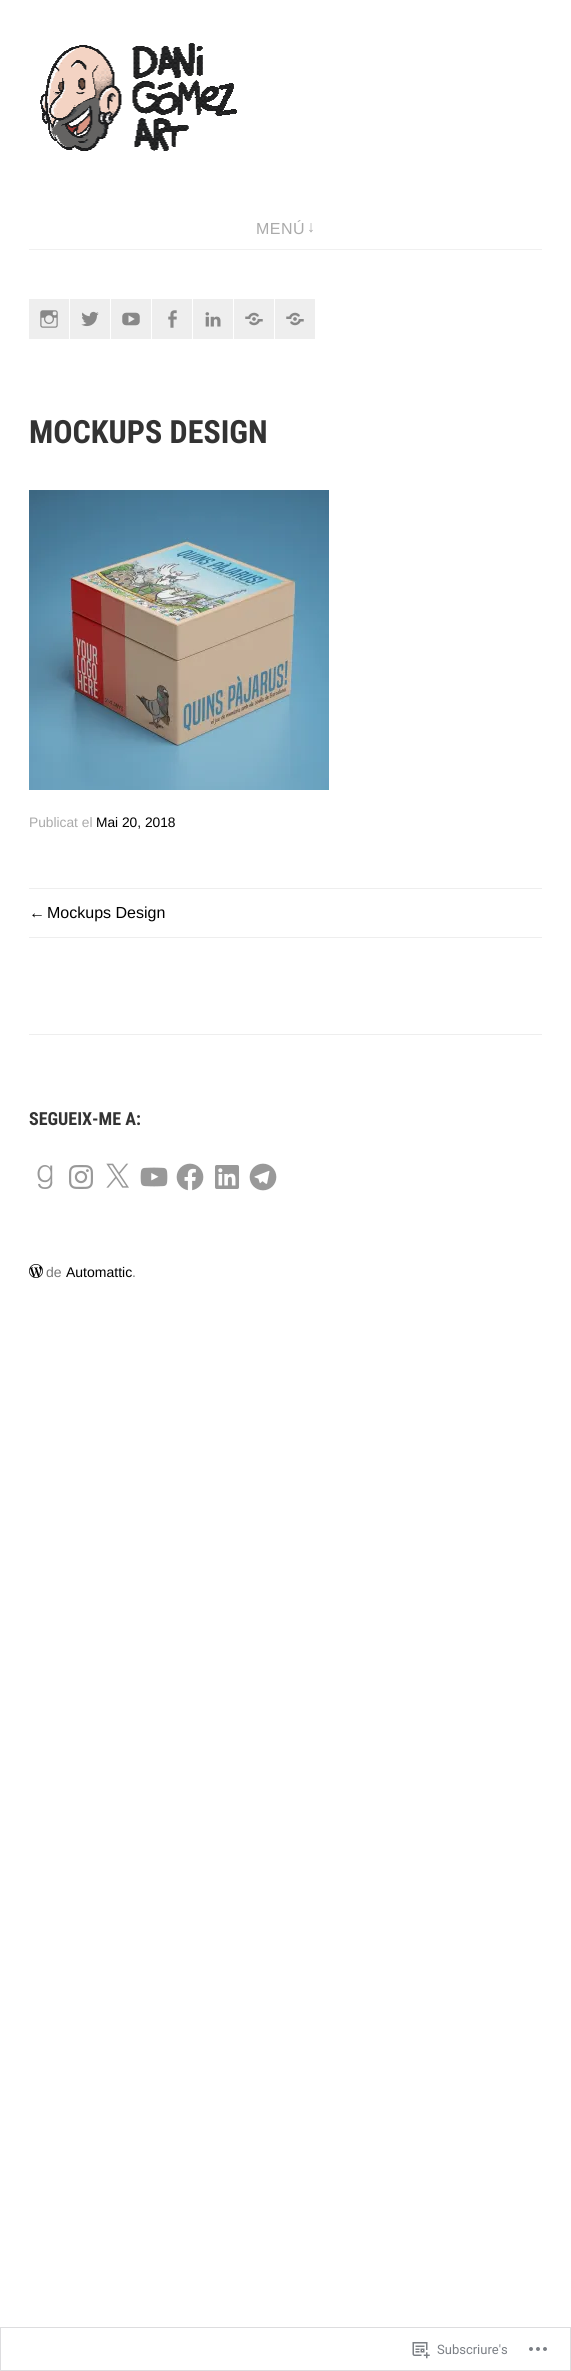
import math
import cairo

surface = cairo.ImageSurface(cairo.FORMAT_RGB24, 571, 2371)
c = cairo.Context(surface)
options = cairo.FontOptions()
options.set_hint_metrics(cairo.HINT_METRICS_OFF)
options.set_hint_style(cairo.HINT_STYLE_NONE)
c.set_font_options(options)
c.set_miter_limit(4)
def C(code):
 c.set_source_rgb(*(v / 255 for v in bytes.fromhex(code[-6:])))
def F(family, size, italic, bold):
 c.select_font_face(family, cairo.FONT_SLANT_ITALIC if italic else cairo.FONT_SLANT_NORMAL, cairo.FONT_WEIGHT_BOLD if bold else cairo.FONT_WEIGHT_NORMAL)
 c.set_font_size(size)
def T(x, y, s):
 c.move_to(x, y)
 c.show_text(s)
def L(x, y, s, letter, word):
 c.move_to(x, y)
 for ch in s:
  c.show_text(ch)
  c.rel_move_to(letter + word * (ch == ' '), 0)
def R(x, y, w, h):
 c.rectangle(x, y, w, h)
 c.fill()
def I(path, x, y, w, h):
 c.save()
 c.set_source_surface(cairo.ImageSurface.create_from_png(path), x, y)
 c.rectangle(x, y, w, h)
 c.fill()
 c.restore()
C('ffffff')
c.paint()
I('1.png',40,43,197,108)
C('f0f0f0')
R(29,249,513,1)
F('Arimo',16,0,0)
C('aaaaaa')
L(256,234,'MENÚ',.5,0)
L(307,232,'↓',.5,0)
C('eeeeee')
R(29,299,40,40)
I('2.png',40,310,18,18)
R(70,299,40,40)
I('3.png',81,311,18,16)
R(111,299,40,40)
I('4.png',122,312,18,14)
R(152,299,40,40)
I('5.png',168,310,9,18)
R(193,299,40,40)
I('6.png',205,312,16,15)
R(234,299,40,40)
I('7.png',245,312,18,14)
R(275,299,40,40)
I('7.png',286,312,18,14)
F('Roboto Condensed',32,0,1)
C('333333')
T(29,443,'MOCKUPS DESIGN')
I('8.png',29,490,300,300)
F('Arimo',13.75,0,0)
C('aaaaaa')
T(29,827,'Publicat el')
C('000000')
T(96,827,'Mai 20, 2018')
C('eeeeee')
R(29,888,513,1)
R(29,937,513,1)
F('Liberation Sans',16,0,0)
C('000000')
T(29,918,'←')
F('Arimo',16,0,0)
T(47,918,'Mockups Design')
C('eeeeee')
R(29,1034,513,1)
F('Roboto Condensed',18,0,1)
C('333333')
T(29,1125,'SEGUEIX-ME A:')
I('9.png',37,1165,16,24)
I('10.png',69,1165,24,24)
I('11.png',106,1163,23,25)
I('12.png',140,1167,28,20)
I('13.png',176,1163,28,28)
I('14.png',215,1165,24,24)
I('15.png',249,1163,28,28)
I('16.png',29,1264,14,14)
F('Arimo',14,0,0)
C('777777')
T(46,1277,'de')
C('000000')
T(66,1277,'Automattic')
C('777777')
T(132,1277,'.')
c.rectangle(.5,2327.5,570,43)
C('dddddf')
c.set_line_width(1)
c.stroke()
I('17.png',412,2342,18,17)
F('Roboto',13,0,0)
C('7b7f85')
T(437,2354,'Subscriure\'s')
I('18.png',529,2347,18,4)
surface.write_to_png('o.png')
